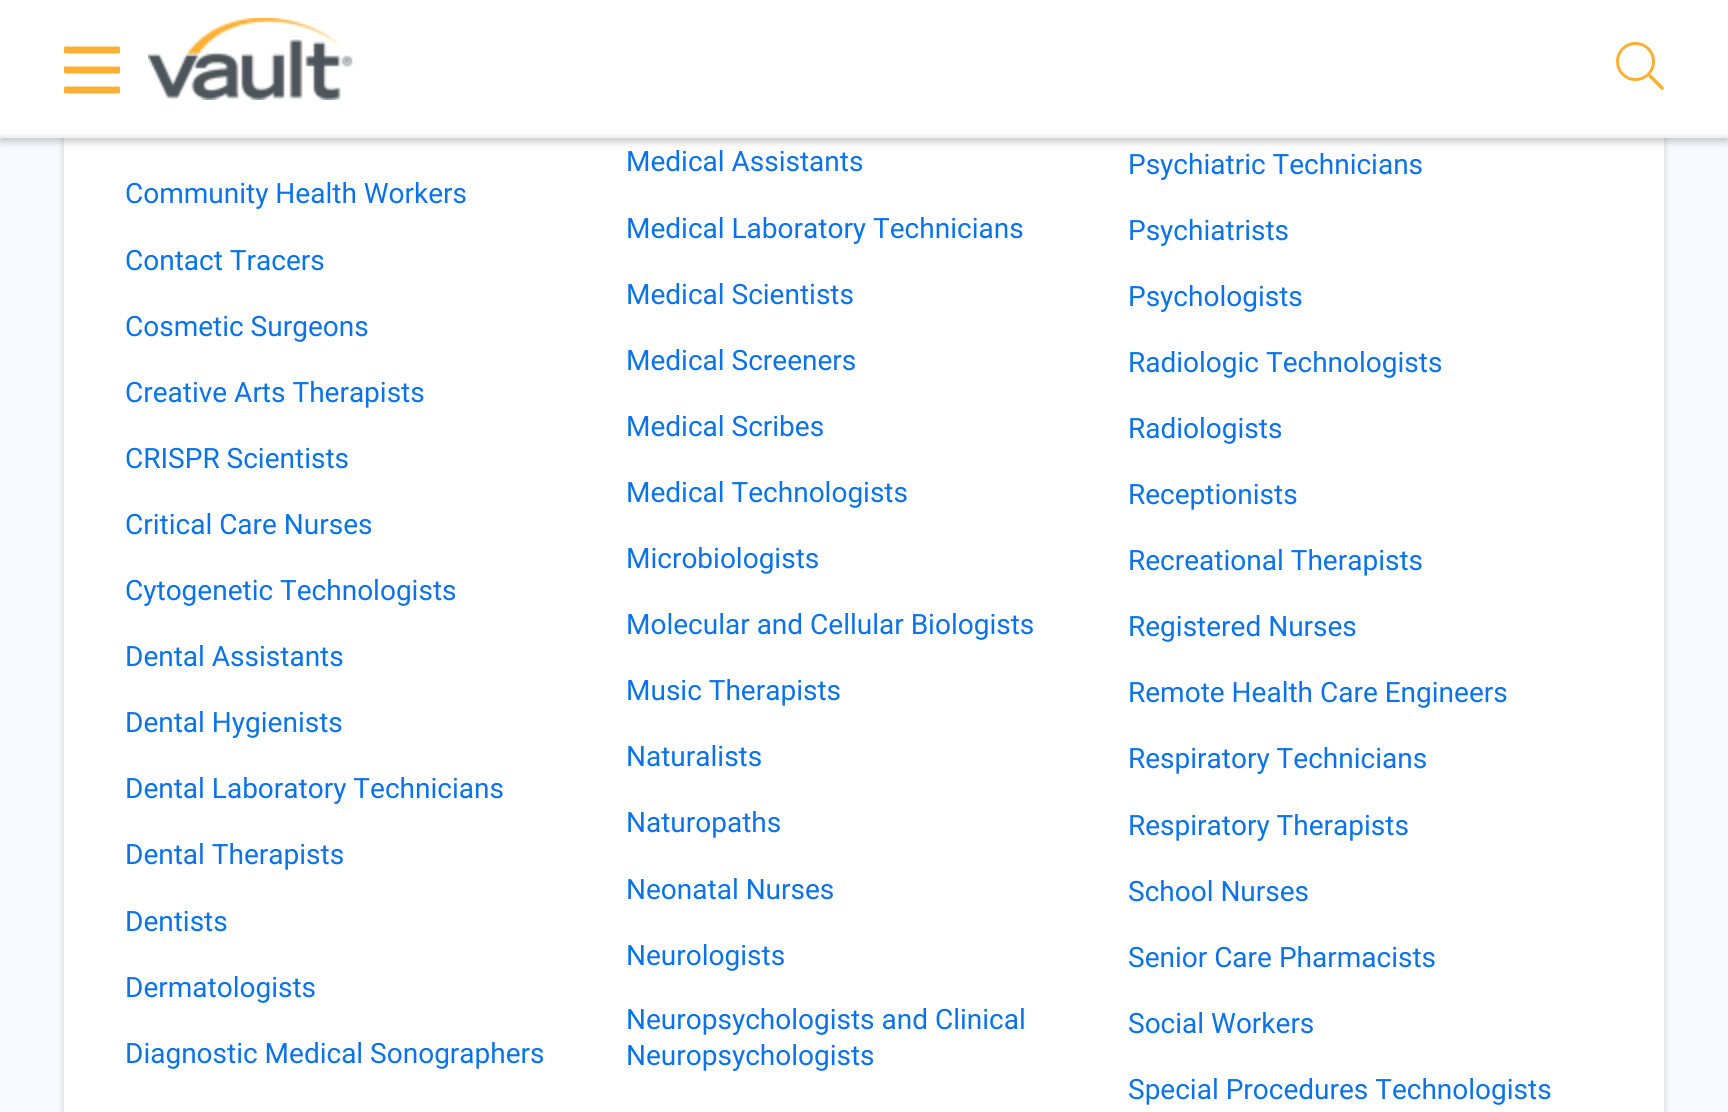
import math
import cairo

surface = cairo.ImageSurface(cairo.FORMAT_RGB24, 1728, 1112)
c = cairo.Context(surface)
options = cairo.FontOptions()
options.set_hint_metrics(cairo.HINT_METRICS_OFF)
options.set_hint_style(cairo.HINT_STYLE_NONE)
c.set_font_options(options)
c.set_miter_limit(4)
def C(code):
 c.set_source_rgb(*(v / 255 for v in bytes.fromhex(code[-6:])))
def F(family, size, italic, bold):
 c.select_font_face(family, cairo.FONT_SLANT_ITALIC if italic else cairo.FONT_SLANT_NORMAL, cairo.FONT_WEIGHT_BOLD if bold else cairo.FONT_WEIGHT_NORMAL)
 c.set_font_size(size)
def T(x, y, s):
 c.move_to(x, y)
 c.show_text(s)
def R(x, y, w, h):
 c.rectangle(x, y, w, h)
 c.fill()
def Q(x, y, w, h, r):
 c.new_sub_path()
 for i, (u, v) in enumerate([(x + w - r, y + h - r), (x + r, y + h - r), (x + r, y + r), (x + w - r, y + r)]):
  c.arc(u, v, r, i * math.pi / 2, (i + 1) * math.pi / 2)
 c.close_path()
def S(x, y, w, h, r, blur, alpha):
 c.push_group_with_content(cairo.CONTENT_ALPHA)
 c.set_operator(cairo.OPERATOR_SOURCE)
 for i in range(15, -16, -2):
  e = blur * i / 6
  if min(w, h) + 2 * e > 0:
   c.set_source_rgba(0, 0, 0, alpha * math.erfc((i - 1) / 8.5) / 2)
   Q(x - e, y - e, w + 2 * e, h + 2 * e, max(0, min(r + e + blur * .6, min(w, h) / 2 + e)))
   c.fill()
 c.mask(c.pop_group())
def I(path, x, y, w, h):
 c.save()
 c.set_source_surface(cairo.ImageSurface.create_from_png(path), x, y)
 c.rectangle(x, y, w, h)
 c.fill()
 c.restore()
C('f7fbff')
c.paint()
C('000000')
S(64,-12,1600,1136,0,4,.15)
C('ffffff')
R(64,138,1600,974)
C('000000')
S(0,4,1728,138,0,4,.21)
C('ffffff')
R(0,0,1728,134)
C('f0f1f1')
R(0,136,1728,2)
C('f6f6f5')
R(0,134,1728,2)
I('1.png',64,46,56,48)
I('2.png',148,18,205,82)
I('3.png',1616,42,48,48)
F('Roboto',28,0,0)
C('0a73eb')
T(626,171,'Medical Assistants')
T(1128,174,'Psychiatric Technicians')
T(125,203,'Community Health Workers')
T(626,238,'Medical Laboratory Technicians')
T(1128,240,'Psychiatrists')
T(125,270,'Contact Tracers')
T(626,304,'Medical Scientists')
T(1128,306,'Psychologists')
T(125,336,'Cosmetic Surgeons')
T(626,370,'Medical Screeners')
T(1128,372,'Radiologic Technologists')
T(125,402,'Creative Arts Therapists')
T(626,436,'Medical Scribes')
T(1128,438,'Radiologists')
T(125,468,'CRISPR Scientists')
T(626,502,'Medical Technologists')
T(1128,504,'Receptionists')
T(125,534,'Critical Care Nurses')
T(626,568,'Microbiologists')
T(1128,570,'Recreational Therapists')
T(125,600,'Cytogenetic Technologists')
T(626,634,'Molecular and Cellular Biologists')
T(1128,636,'Registered Nurses')
T(125,666,'Dental Assistants')
T(626,700,'Music Therapists')
T(1128,702,'Remote Health Care Engineers')
T(125,732,'Dental Hygienists')
T(626,766,'Naturalists')
T(1128,768,'Respiratory Technicians')
T(125,798,'Dental Laboratory Technicians')
T(626,832,'Naturopaths')
T(1128,835,'Respiratory Therapists')
T(125,864,'Dental Therapists')
T(626,899,'Neonatal Nurses')
T(1128,901,'School Nurses')
T(125,931,'Dentists')
T(626,965,'Neurologists')
T(1128,967,'Senior Care Pharmacists')
T(125,997,'Dermatologists')
T(626,1029,'Neuropsychologists and Clinical')
T(626,1065,'Neuropsychologists')
T(1128,1033,'Social Workers')
T(125,1063,'Diagnostic Medical Sonographers')
T(1128,1099,'Special Procedures Technologists')
surface.write_to_png('o.png')
